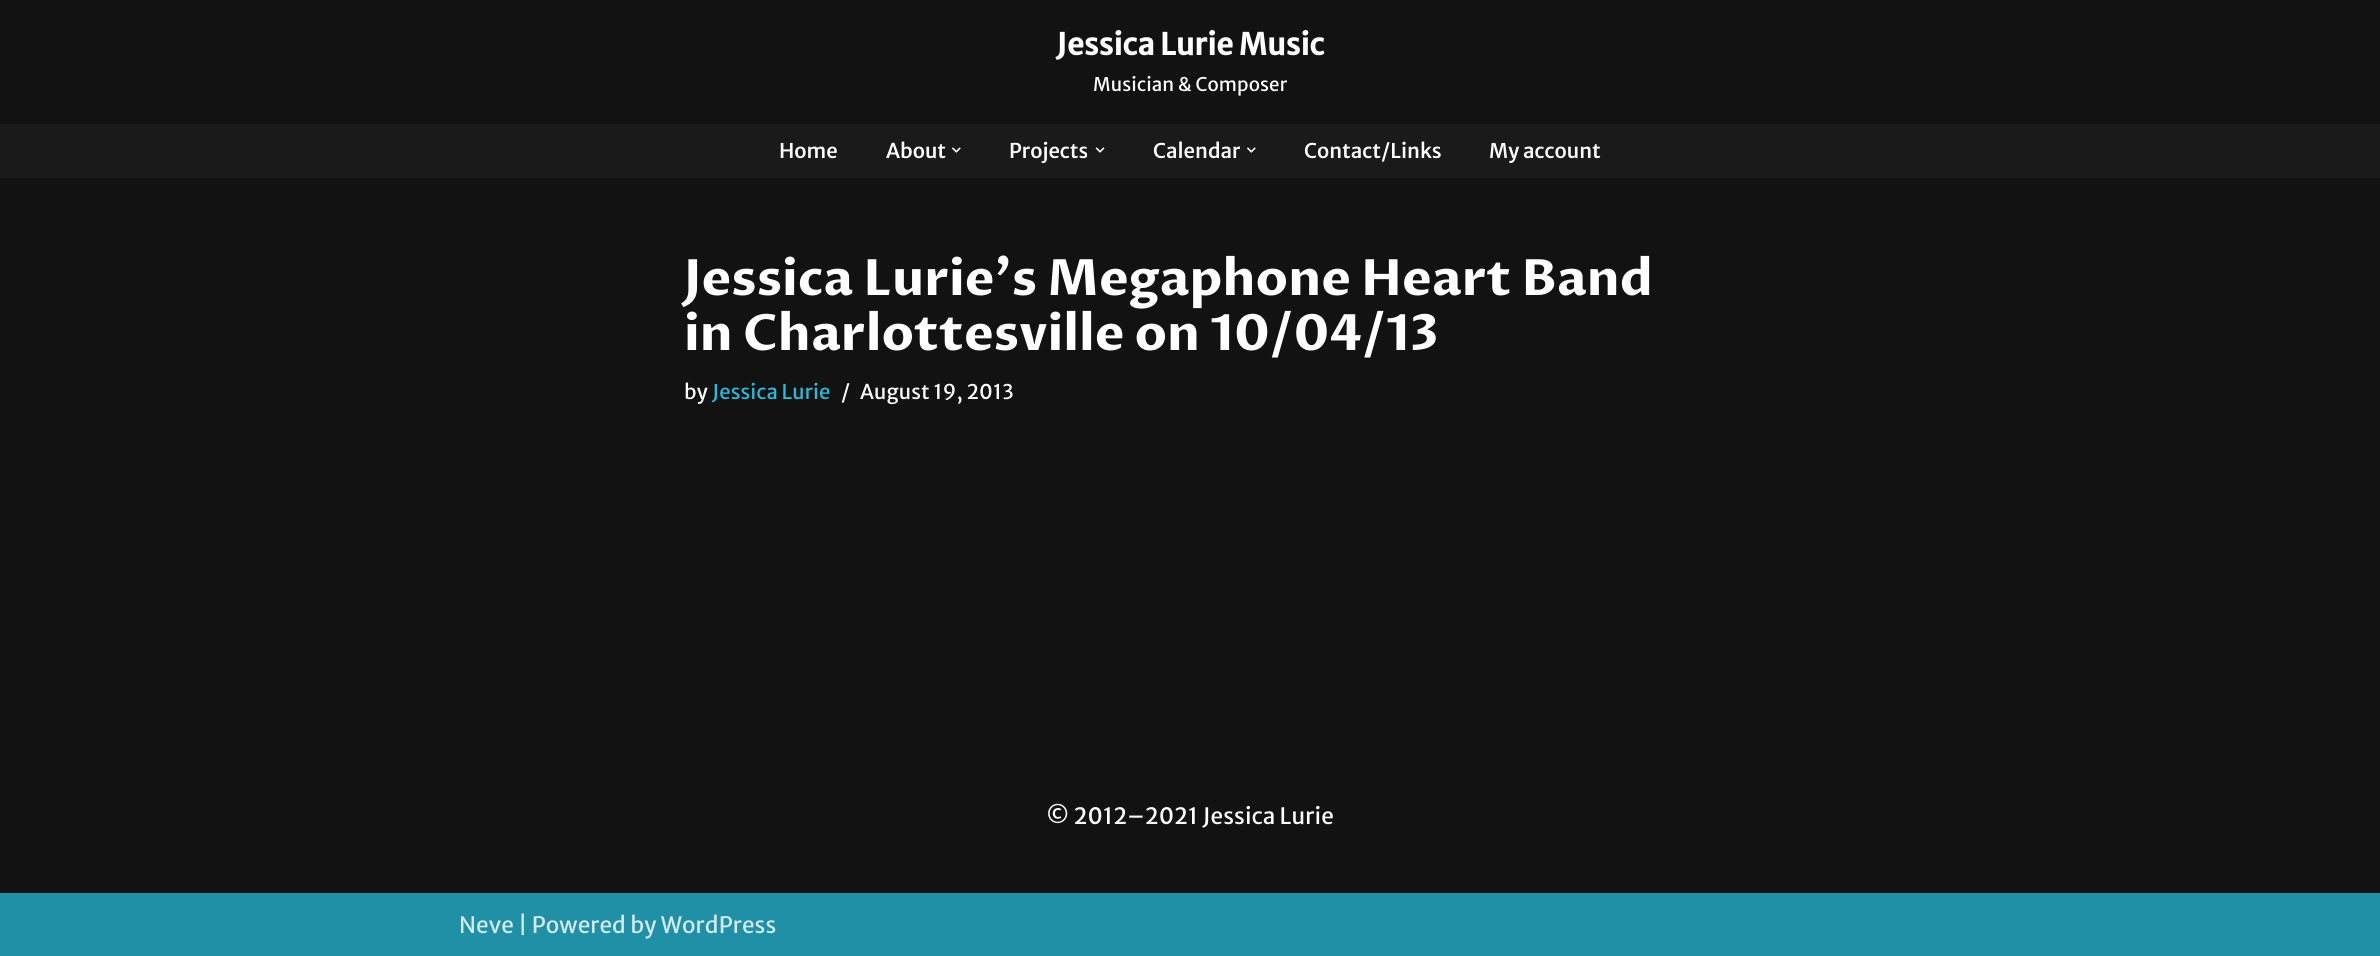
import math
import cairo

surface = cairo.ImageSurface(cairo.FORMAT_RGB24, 2380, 956)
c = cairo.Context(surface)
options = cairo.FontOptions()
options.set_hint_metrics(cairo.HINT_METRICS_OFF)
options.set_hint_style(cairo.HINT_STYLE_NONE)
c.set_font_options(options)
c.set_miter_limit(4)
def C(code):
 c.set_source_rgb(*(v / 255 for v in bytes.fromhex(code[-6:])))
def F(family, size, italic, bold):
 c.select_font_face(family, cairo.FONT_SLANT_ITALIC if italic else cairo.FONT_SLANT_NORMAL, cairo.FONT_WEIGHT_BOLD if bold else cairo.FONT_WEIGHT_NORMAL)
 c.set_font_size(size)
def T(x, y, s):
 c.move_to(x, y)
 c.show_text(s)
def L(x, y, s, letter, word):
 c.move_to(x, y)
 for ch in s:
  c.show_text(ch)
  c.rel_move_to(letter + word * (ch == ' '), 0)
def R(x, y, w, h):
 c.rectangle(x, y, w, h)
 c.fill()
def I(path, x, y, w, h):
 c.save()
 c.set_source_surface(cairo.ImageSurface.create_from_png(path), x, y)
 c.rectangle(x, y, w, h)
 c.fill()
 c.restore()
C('121212')
c.paint()
F('Merriweather Sans',30,0,1)
C('ffffff')
L(1056,55,'Jessica Lurie Music',.1,0)
F('Merriweather Sans',18.75,0,0)
L(1093,91,'Musician & Composer',.1,0)
C('1a1a1a')
R(0,124,2380,54)
F('Merriweather Sans Medium',20.25,0,0)
C('ffffff')
T(779,158,'Home')
T(886,158,'About')
I('1.png',952,147,9,6)
T(1009,158,'Projects')
I('2.png',1095,147,10,6)
T(1153,158,'Calendar')
I('1.png',1247,147,9,6)
T(1304,158,'Contact/Links')
T(1489,158,'My account')
F('Proza Libre',50,0,1)
T(684,295,'Jessica Lurie’s Megaphone Heart Band')
T(684,350,'in Charlottesville on 10/04/13')
F('Merriweather Sans',20.25,0,0)
L(684,399,'by',.1,0)
C('26bcdb')
L(712,399,'Jessica Lurie',.1,0)
C('ffffff')
L(841,399,'/',.1,0)
L(860,399,'August 19, 2013',.1,0)
F('Merriweather Sans',22.5,0,0)
L(1046,824,'© 2012–2021 Jessica Lurie',.1,0)
C('1f90a6')
R(0,893,2380,63)
C('d4eaee')
L(459,933,'Neve | Powered by WordPress',.1,0)
surface.write_to_png('o.png')
